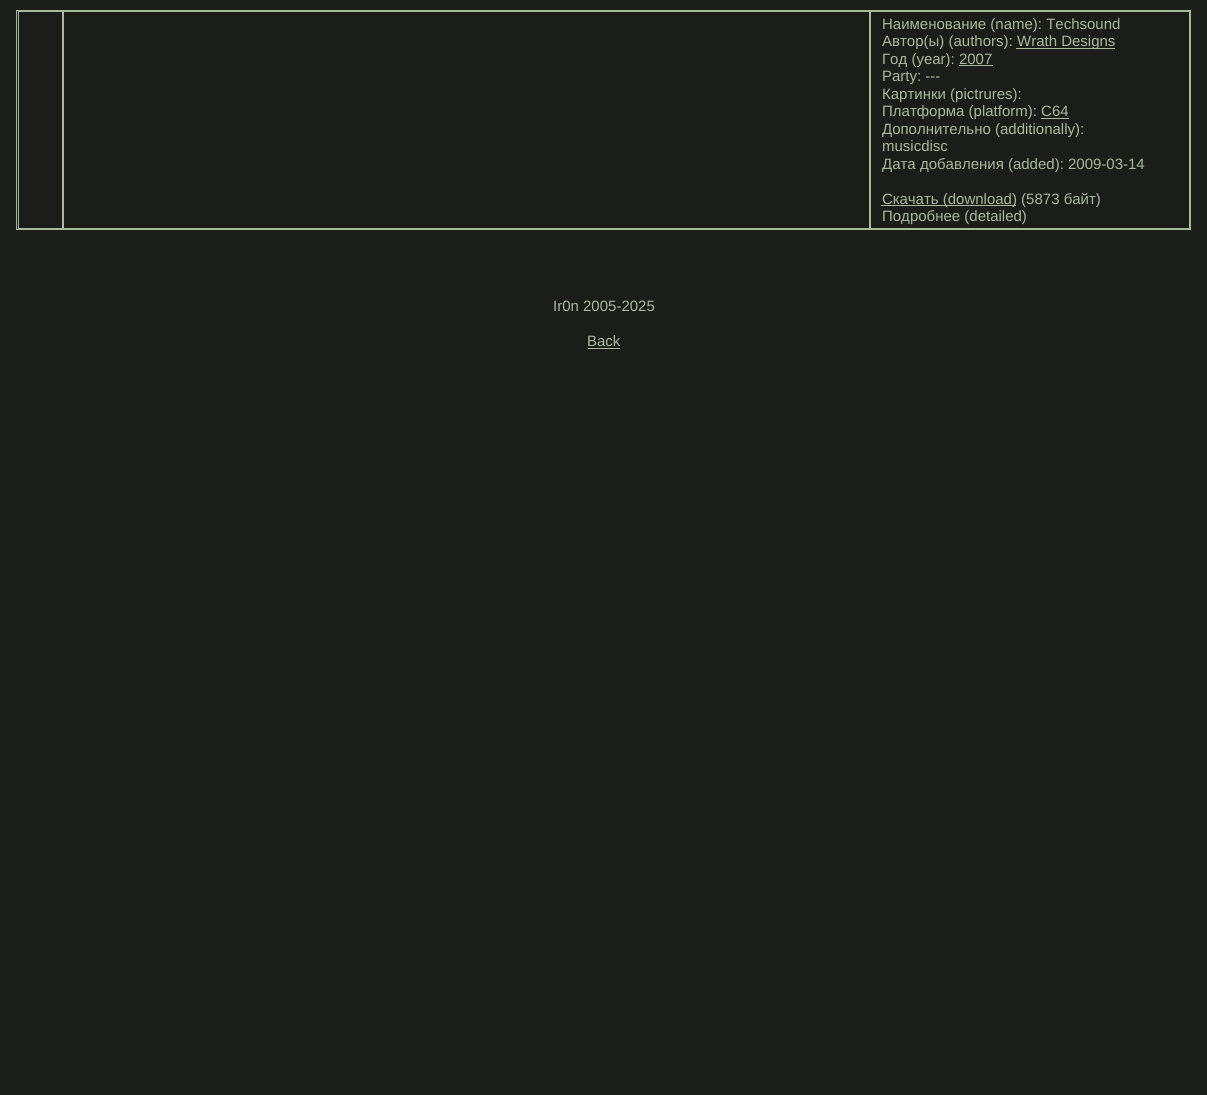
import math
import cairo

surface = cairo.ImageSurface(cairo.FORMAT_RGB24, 1207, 1095)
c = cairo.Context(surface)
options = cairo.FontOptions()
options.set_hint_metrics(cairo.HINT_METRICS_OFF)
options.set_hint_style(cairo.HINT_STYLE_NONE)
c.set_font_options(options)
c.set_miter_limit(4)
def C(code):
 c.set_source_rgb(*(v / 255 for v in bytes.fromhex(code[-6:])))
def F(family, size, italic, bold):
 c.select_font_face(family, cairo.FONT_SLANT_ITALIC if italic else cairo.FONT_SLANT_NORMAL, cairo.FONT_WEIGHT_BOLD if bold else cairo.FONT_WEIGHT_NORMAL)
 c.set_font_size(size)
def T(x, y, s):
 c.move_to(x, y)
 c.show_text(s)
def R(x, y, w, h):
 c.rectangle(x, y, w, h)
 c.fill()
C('1b1e18')
c.paint()
c.rectangle(16.5,10.5,1174,219)
C('aab89c')
c.set_line_width(1)
c.stroke()
c.rectangle(18.5,11.5,44,217)
c.stroke()
c.rectangle(63.5,11.5,806,217)
c.stroke()
c.rectangle(870.5,11.5,319,217)
c.stroke()
F('Liberation Sans',15,0,0)
T(882,29,'Наименование (name): Techsound')
T(882,46,'Автор(ы) (authors):')
R(1016,48,99,1)
T(1017,46,'Wrath Designs')
T(882,64,'Год (year): 2007')
R(959,65,34,1)
T(882,81,'Party: ---')
T(882,99,'Картинки (pictrures):')
T(882,116,'Платформа (platform): C64')
R(1041,118,28,1)
T(882,134,'Дополнительно (additionally):')
T(882,151,'musicdisc')
T(882,169,'Дата добавления (added): 2009-03-14')
R(881,205,135,1)
T(882,204,'Скачать (download) (5873 байт)')
T(882,221,'Подробнее (detailed)')
T(553,311,'Ir0n 2005-2025')
T(587,346,'Back')
R(588,348,32,1)
surface.write_to_png('o.png')
